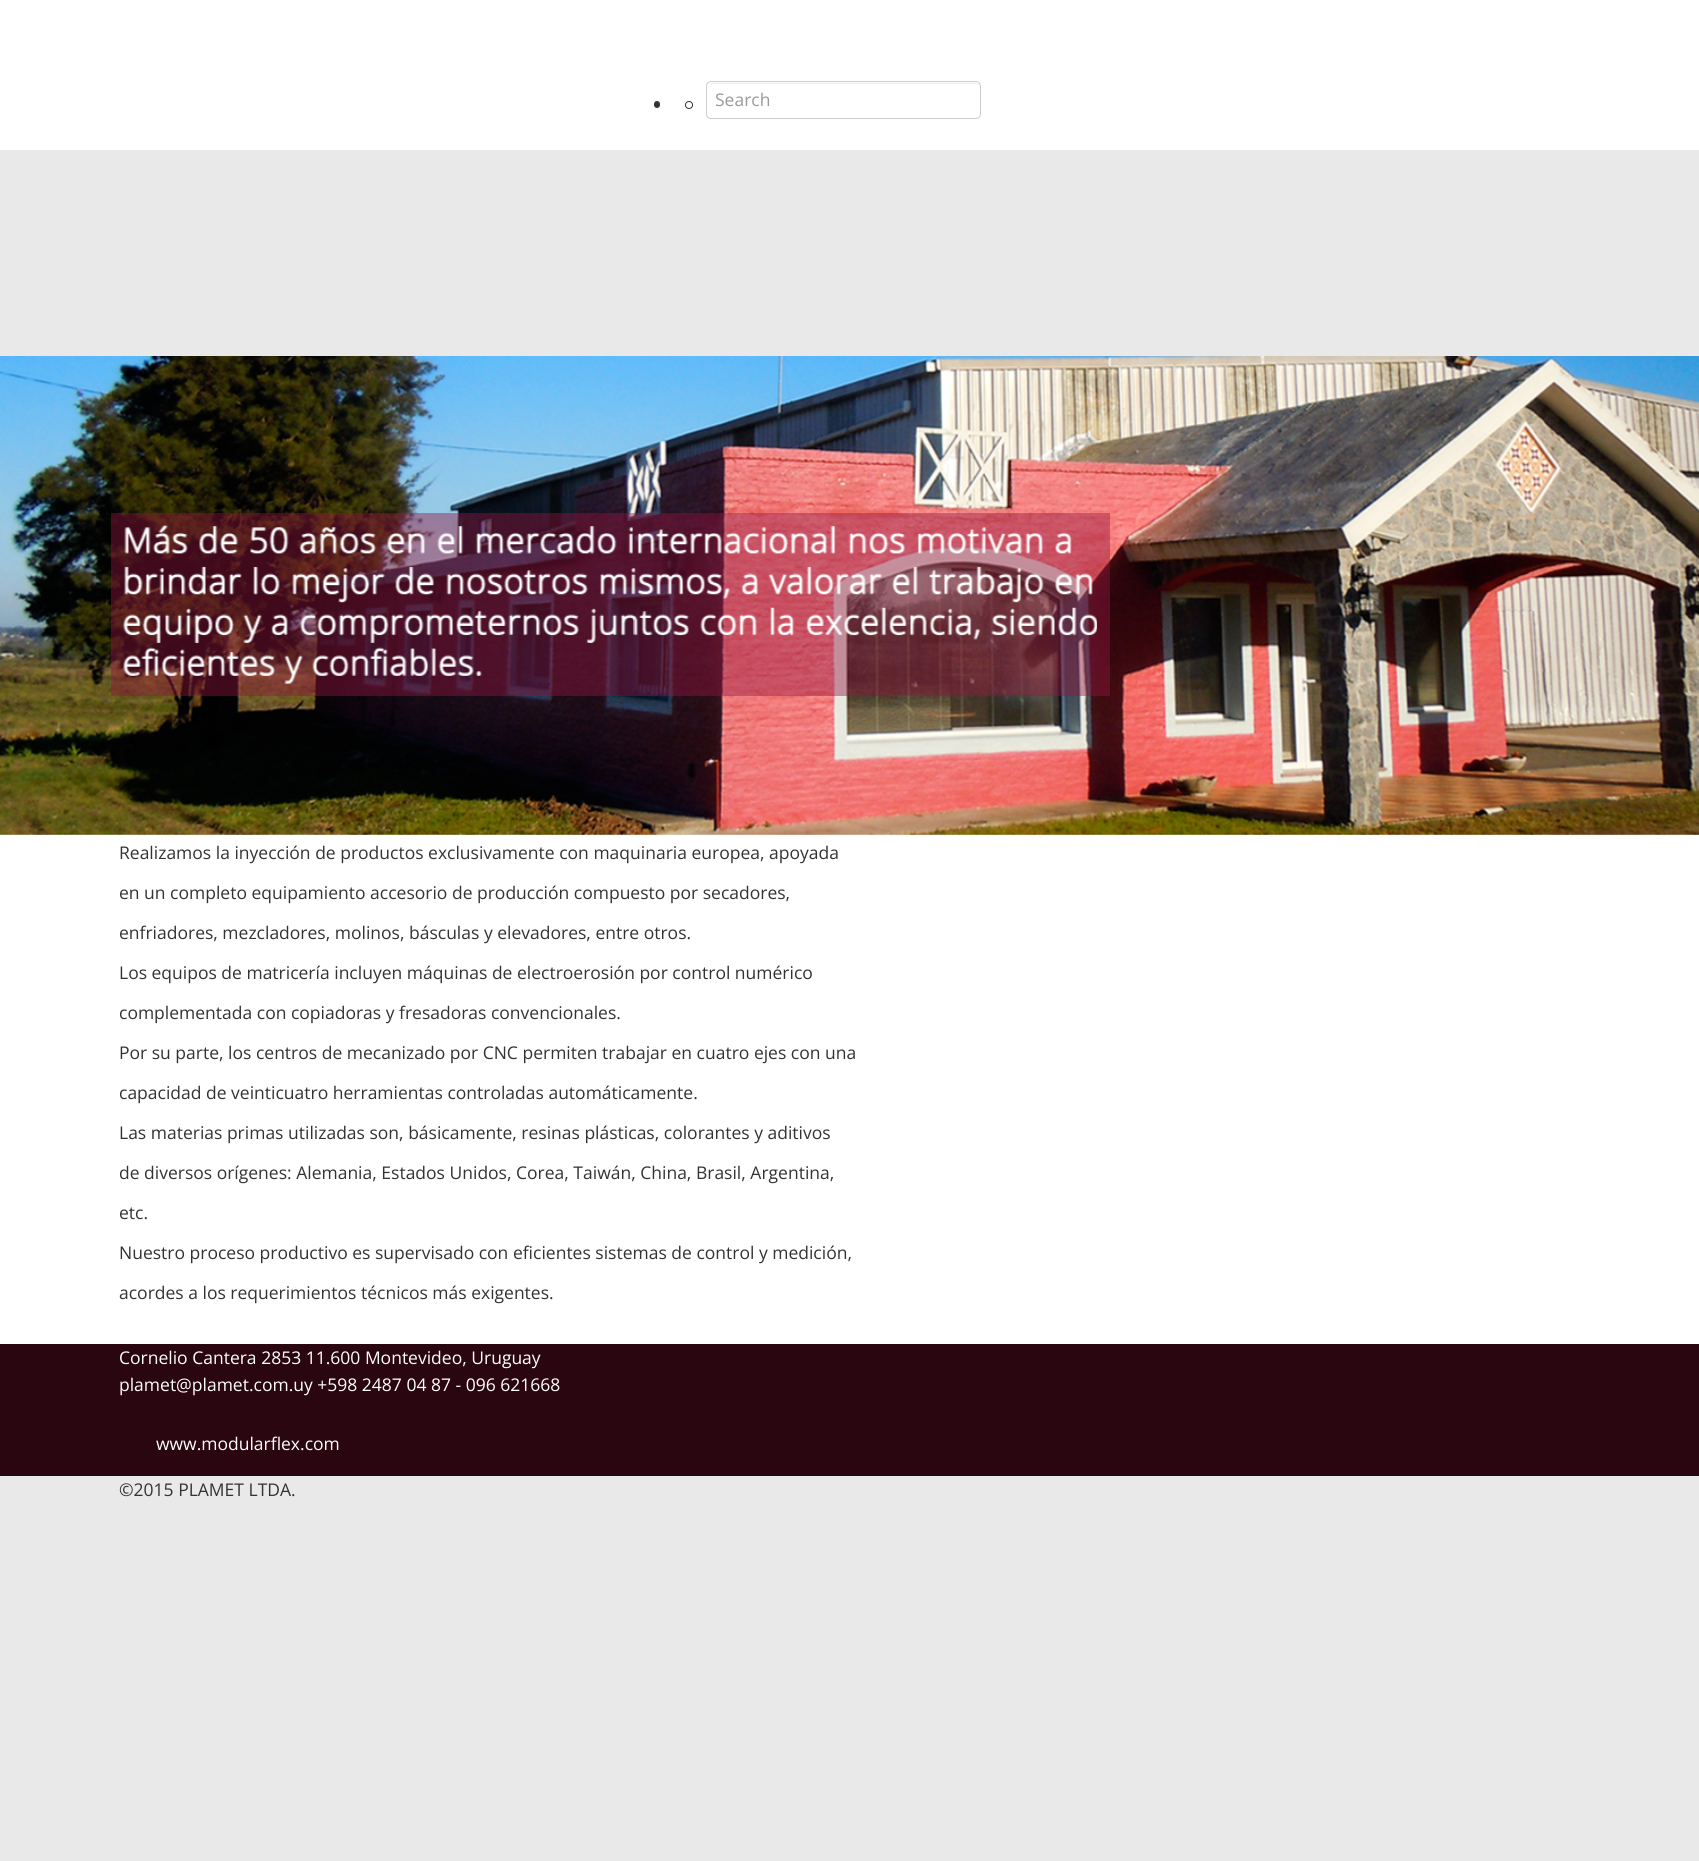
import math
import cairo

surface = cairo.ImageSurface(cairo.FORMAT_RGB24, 1699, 1861)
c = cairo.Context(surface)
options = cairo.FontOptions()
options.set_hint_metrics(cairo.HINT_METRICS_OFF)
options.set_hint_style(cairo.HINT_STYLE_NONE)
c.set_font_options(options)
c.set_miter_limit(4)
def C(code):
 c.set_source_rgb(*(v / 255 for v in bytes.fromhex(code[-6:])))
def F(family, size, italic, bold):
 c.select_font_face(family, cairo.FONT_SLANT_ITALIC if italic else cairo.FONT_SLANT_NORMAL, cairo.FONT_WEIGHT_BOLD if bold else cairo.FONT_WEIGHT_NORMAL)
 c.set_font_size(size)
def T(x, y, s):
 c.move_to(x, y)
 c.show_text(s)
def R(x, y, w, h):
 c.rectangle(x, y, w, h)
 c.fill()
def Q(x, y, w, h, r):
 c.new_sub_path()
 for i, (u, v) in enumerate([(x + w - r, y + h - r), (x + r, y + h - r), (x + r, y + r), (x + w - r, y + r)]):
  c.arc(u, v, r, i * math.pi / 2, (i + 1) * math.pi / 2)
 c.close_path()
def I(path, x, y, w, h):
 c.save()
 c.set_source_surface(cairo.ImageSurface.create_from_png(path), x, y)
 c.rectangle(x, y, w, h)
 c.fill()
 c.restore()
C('e9e9e9')
c.paint()
C('ffffff')
R(0,0,1699,150)
C('333333')
Q(654,101,6,7,3)
c.fill()
c.arc(689,105,3.5,0,2 * math.pi)
c.set_line_width(1)
c.stroke()
C('ececec')
c.new_path()
c.move_to(711,84)
c.line_to(976,84)
c.curve_to(978,84,980,85,980,88)
c.curve_to(980,85,979,83,976,83)
c.line_to(712,83)
c.curve_to(709,83,708,85,708,88)
c.curve_to(708,85,709,84,711,84)
c.close_path()
c.fill()
Q(706.5,81.5,274,37,4.5)
C('cccccc')
c.stroke()
F('Open Sans',17.5,0,0)
C('999999')
T(715,106,'Search')
C('ffffff')
R(0,834,1699,510)
I('1.png',0,356,1699,479)
c.set_source_rgba(0.573,0.09,0.247,0.43)
R(111,513,999,183)
I('2.png',123,525,974,159)
C('333333')
T(119,859,'Realizamos la inyección de productos exclusivamente con maquinaria europea, apoyada')
T(119,899,'en un completo equipamiento accesorio de producción compuesto por secadores,')
T(119,939,'enfriadores, mezcladores, molinos, básculas y elevadores, entre otros.')
T(119,979,'Los equipos de matricería incluyen máquinas de electroerosión por control numérico')
T(119,1019,'complementada con copiadoras y fresadoras convencionales.')
T(119,1059,'Por su parte, los centros de mecanizado por CNC permiten trabajar en cuatro ejes con una')
T(119,1099,'capacidad de veinticuatro herramientas controladas automáticamente.')
T(119,1139,'Las materias primas utilizadas son, básicamente, resinas plásticas, colorantes y aditivos')
T(119,1179,'de diversos orígenes: Alemania, Estados Unidos, Corea, Taiwán, China, Brasil, Argentina,')
T(119,1219,'etc.')
T(119,1259,'Nuestro proceso productivo es supervisado con eficientes sistemas de control y medición,')
T(119,1299,'acordes a los requerimientos técnicos más exigentes.')
C('2a0611')
R(0,1344,1699,132)
C('ffffff')
T(119,1364,'Cornelio Cantera 2853 11.600 Montevideo, Uruguay')
T(119,1391,'plamet@plamet.com.uy +598 2487 04 87 - 096 621668')
T(156,1450,'www.modularflex.com')
C('333333')
T(119,1496,'©2015 PLAMET LTDA.')
surface.write_to_png('o.png')
